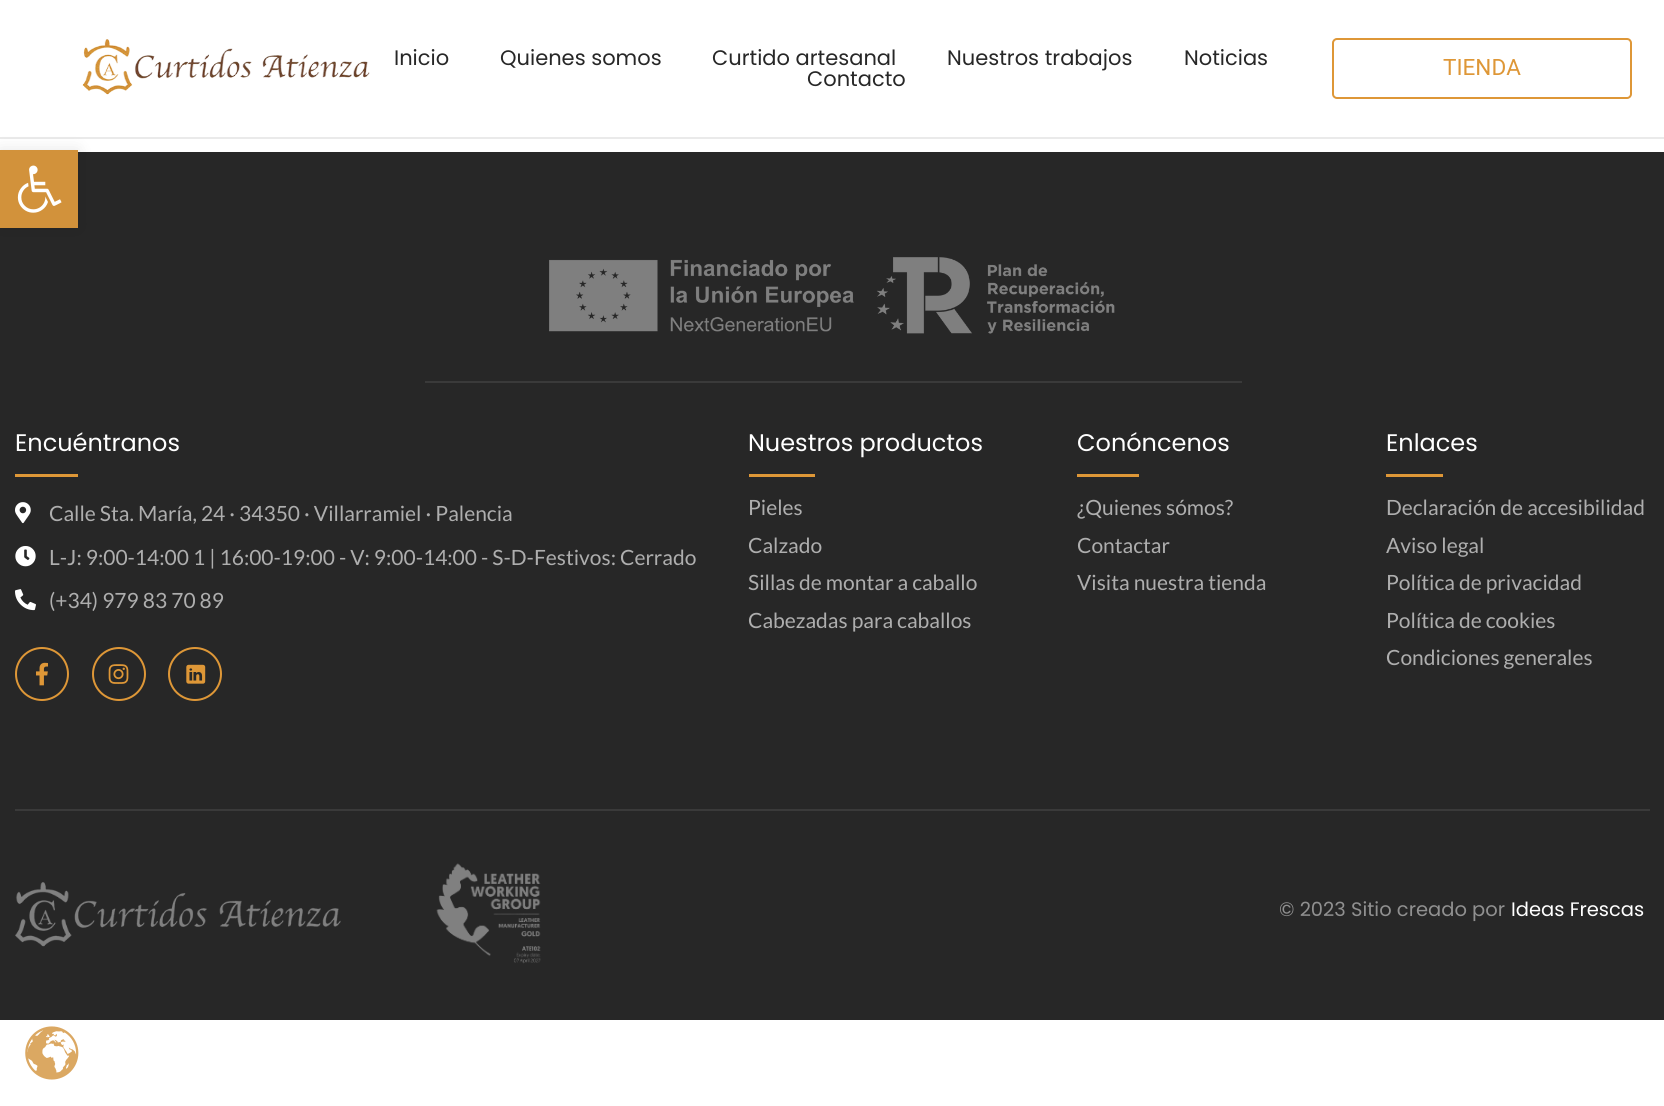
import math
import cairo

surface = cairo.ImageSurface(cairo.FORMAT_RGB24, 1664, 1106)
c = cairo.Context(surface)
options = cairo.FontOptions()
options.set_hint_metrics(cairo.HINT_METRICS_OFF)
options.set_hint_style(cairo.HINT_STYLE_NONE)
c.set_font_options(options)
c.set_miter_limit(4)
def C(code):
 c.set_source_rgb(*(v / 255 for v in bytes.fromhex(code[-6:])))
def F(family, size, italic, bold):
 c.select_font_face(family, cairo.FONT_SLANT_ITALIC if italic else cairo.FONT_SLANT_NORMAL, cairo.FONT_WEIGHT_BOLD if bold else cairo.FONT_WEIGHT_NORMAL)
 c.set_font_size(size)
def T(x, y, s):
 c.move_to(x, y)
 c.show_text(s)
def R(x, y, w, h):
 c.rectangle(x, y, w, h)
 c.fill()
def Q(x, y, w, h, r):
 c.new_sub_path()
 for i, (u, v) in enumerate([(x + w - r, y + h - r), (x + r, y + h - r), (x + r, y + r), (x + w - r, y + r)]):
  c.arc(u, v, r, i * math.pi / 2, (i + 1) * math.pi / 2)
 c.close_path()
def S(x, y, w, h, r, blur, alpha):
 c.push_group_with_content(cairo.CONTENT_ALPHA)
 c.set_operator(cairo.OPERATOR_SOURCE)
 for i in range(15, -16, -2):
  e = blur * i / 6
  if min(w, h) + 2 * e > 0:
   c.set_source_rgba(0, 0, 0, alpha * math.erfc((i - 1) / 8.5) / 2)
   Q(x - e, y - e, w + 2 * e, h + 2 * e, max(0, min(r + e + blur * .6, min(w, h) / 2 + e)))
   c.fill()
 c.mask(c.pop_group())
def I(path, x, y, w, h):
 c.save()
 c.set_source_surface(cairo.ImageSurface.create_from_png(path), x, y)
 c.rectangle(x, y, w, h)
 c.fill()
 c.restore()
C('ffffff')
c.paint()
C('eaeaea')
R(0,137,1664,2)
I('1.png',82,39,288,56)
F('Poppins',21,0,0)
C('272727')
T(394,65,'Inicio')
T(500,65,'Quienes somos')
T(712,65,'Curtido artesanal')
T(947,65,'Nuestros trabajos')
T(1184,65,'Noticias')
T(807,86,'Contacto')
Q(1333,39,298,59,4)
C('de9737')
c.stroke()
F('Roboto',22.5,0,0)
T(1443,75,'TIENDA')
C('272727')
R(0,152,1664,868)
C('000000')
S(0,150,78,78,0,7.5,.1)
C('d2923b')
R(0,150,78,78)
I('2.png',17,165,45,48)
I('3.png',549,257,566,77)
C('3a3a3a')
R(425,381,817,2)
F('Poppins',24,0,0)
C('ffffff')
T(15,451,'Encuéntranos')
C('de9737')
R(15,474,63,3)
I('4.png',15,502,16,22)
F('Lato',21,0,0)
C('aeaeae')
T(49,521,'Calle Sta. María, 24 · 34350 · Villarramiel · Palencia')
I('5.png',15,546,21,21)
T(49,565,'L-J: 9:00-14:00 1 | 16:00-19:00 - V: 9:00-14:00 - S-D-Festivos: Cerrado')
I('6.png',15,589,21,22)
T(49,608,'(+34) 979 83 70 89')
c.new_path()
c.arc(42,674,26,0,2 * math.pi)
C('de9737')
c.stroke()
I('7.png',36,662,12,24)
c.arc(119,674,26,0,2 * math.pi)
c.stroke()
I('8.png',108,664,21,20)
c.arc(195,674,26,0,2 * math.pi)
c.stroke()
I('9.png',186,664,20,20)
F('Poppins',24,0,0)
C('ffffff')
T(748,451,'Nuestros productos')
C('de9737')
R(749,474,66,3)
F('Lato',21,0,0)
C('aeaeae')
T(748,515,'Pieles')
T(748,553,'Calzado')
T(748,590,'Sillas de montar a caballo')
T(748,628,'Cabezadas para caballos')
F('Poppins',24,0,0)
C('ffffff')
T(1077,451,'Conóncenos')
C('de9737')
R(1077,474,62,3)
F('Lato',21,0,0)
C('aeaeae')
T(1077,515,'¿Quienes sómos?')
T(1077,553,'Contactar')
T(1077,590,'Visita nuestra tienda')
F('Poppins',24,0,0)
C('ffffff')
T(1386,451,'Enlaces')
C('de9737')
R(1386,474,57,3)
F('Lato',21,0,0)
C('aeaeae')
T(1386,515,'Declaración de accesibilidad')
T(1386,553,'Aviso legal')
T(1386,590,'Política de privacidad')
T(1386,628,'Política de cookies')
T(1386,665,'Condiciones generales')
C('3a3a3a')
R(15,809,1635,2)
I('10.png',15,882,326,65)
I('11.png',436,863,105,101)
F('Poppins',19.5,0,0)
C('909090')
T(1279,916,'© 2023 Sitio creado por')
C('ffffff')
T(1511,916,'Ideas Frescas')
I('12.png',25,1026,54,54)
surface.write_to_png('o.png')
